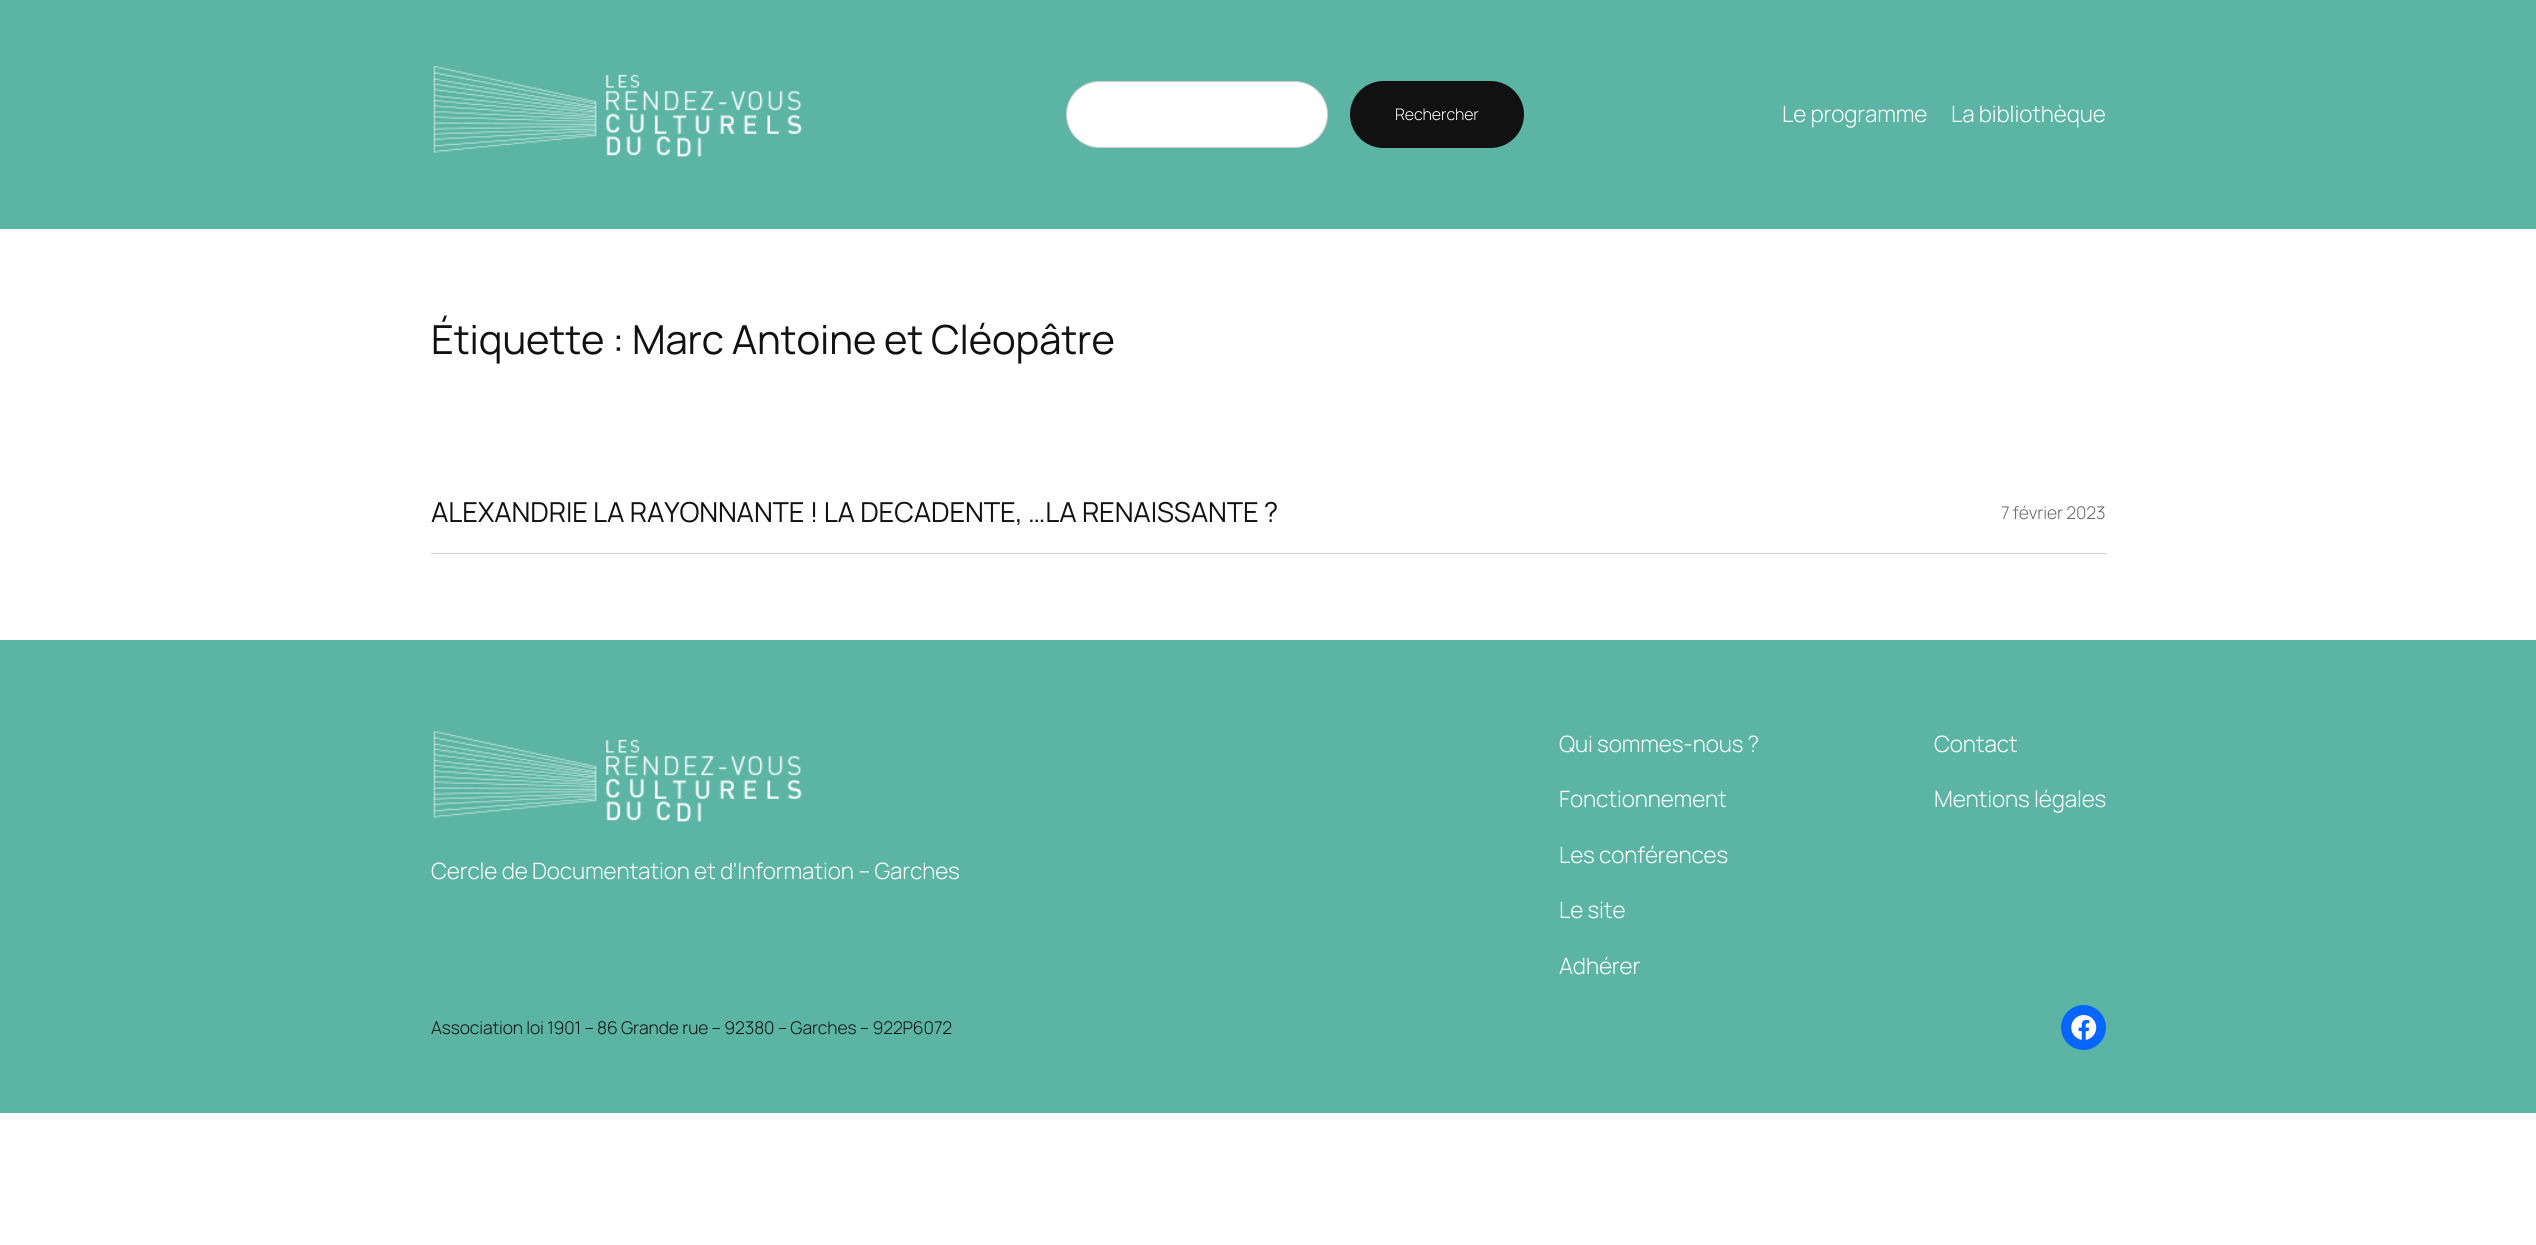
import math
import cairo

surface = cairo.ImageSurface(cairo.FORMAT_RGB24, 2536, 1245)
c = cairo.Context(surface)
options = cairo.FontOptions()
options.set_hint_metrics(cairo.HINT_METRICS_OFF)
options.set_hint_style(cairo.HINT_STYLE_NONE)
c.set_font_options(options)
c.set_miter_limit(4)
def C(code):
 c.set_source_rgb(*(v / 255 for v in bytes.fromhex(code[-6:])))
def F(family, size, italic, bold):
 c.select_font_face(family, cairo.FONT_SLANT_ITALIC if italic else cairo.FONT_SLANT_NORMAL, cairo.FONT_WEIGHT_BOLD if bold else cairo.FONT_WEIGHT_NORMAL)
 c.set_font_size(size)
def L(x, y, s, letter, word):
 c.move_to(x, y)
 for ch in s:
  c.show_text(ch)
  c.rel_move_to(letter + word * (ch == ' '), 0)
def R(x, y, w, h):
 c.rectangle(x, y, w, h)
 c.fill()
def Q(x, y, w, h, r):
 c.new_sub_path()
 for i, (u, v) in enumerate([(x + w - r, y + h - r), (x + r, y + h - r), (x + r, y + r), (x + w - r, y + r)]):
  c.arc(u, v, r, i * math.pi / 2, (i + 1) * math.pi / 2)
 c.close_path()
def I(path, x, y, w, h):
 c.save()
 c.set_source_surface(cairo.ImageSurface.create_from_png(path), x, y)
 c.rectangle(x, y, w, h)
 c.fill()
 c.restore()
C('ffffff')
c.paint()
C('5cb5a4')
R(0,0,2536,229)
I('1.png',433,66,369,91)
C('ffffff')
Q(1066,81,262,67,33.5)
c.fill()
Q(1066.5,81.5,261,66,33)
c.set_source_rgba(0,0,0,0.2)
c.set_line_width(1)
c.stroke()
C('111111')
Q(1350,81,174,67,33.5)
c.fill()
F('Manrope Light',16,0,0)
C('ffffff')
L(1395,120,'Rechercher',-.12,0)
F('Manrope Light',22.5,0,0)
L(1782,122,'Le programme',-.12,0)
L(1951,122,'La bibliothèque',-.12,0)
F('Manrope',40,0,0)
C('111111')
L(431,354,'Étiquette : Marc Antoine et Cléopâtre',-.12,0)
C('cfcfcf')
R(431,553,1675,1)
F('Manrope',27.5,0,0)
C('111111')
L(431,522,'ALEXANDRIE LA RAYONNANTE ! LA DECADENTE, …LA RENAISSANTE ?',-.12,0)
F('Manrope Light',17.5,0,0)
C('686868')
L(2001,519,'7 février 2023',-.12,0)
C('5cb5a4')
R(0,640,2536,473)
I('1.png',433,731,369,91)
F('Manrope Light',22.5,0,0)
C('ffffff')
L(431,879,'Cercle de Documentation et d\'Information – Garches',-.12,0)
L(1559,752,'Qui sommes-nous ?',-.12,0)
L(1559,807,'Fonctionnement',-.12,0)
L(1559,863,'Les conférences',-.12,0)
L(1559,918,'Le site',-.12,0)
L(1559,974,'Adhérer',-.12,0)
L(1934,752,'Contact',-.12,0)
L(1934,807,'Mentions légales',-.12,0)
F('Manrope Light',17.5,0,0)
C('111111')
L(431,1034,'Association loi 1901 – 86 Grande rue – 92380 – Garches – 922P6072',-.12,0)
C('0866ff')
c.new_path()
c.arc(2083.5,1027.5,22.5,0,2 * math.pi)
c.fill()
I('2.png',2071,1015,26,25)
surface.write_to_png('o.png')
